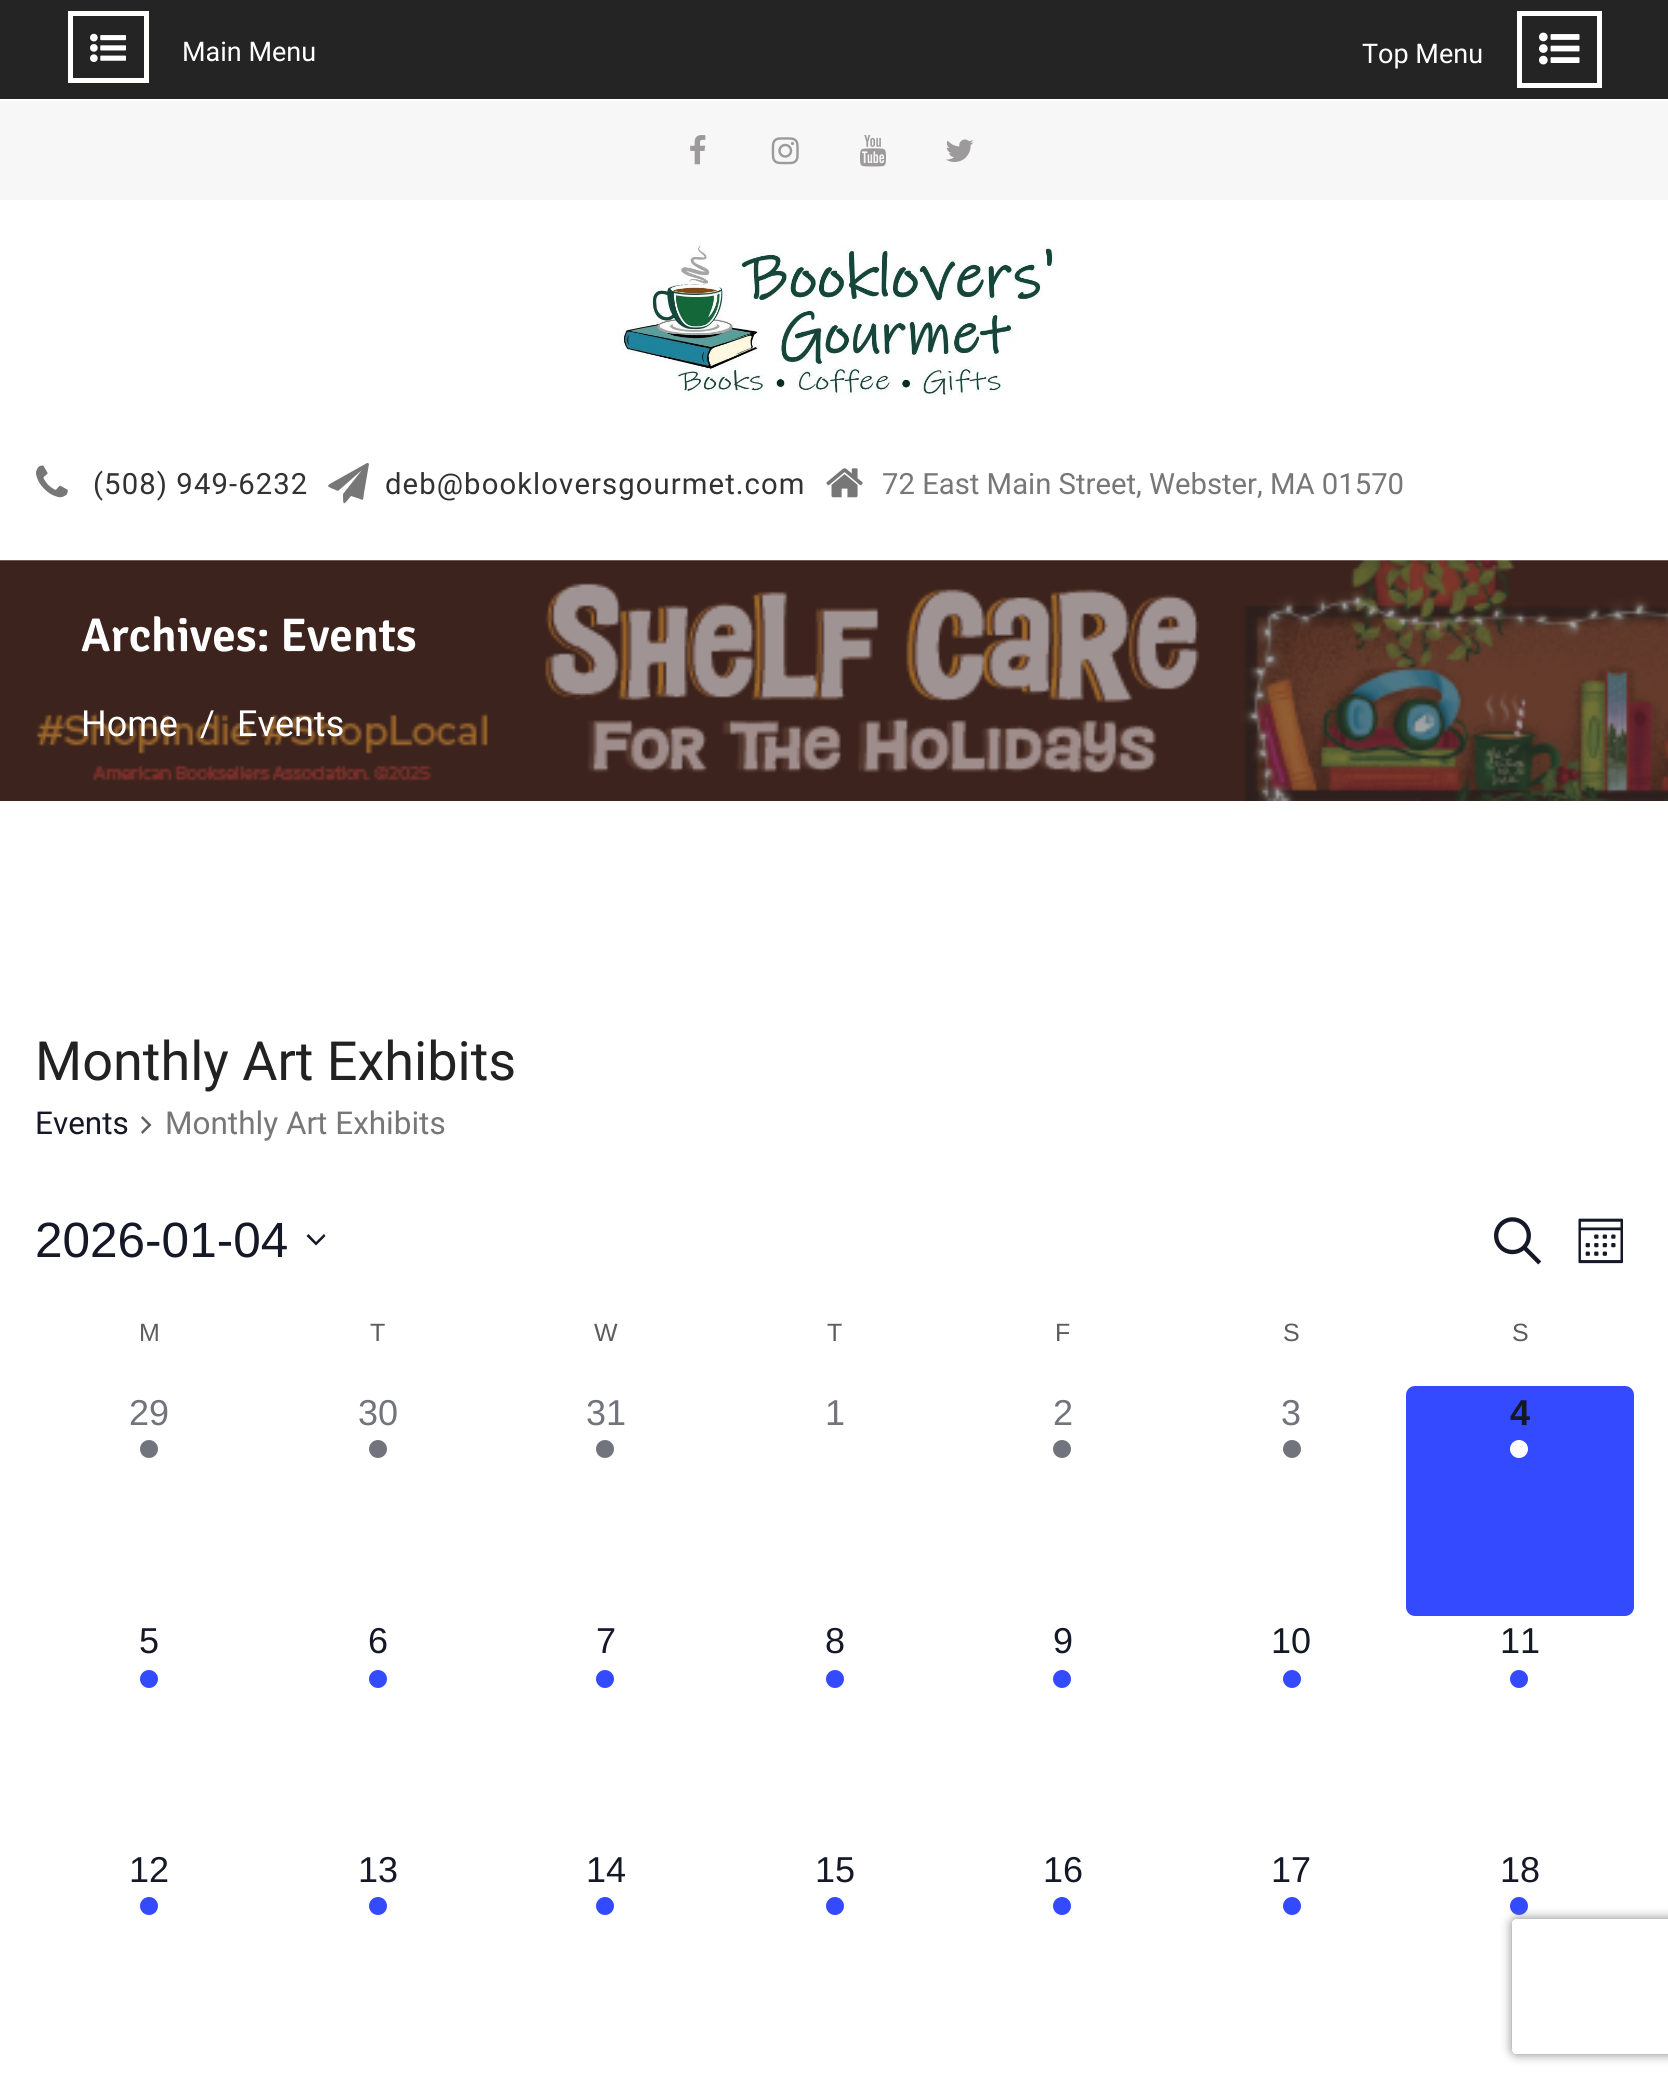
import math
import cairo

surface = cairo.ImageSurface(cairo.FORMAT_RGB24, 1668, 2085)
c = cairo.Context(surface)
options = cairo.FontOptions()
options.set_hint_metrics(cairo.HINT_METRICS_OFF)
options.set_hint_style(cairo.HINT_STYLE_NONE)
c.set_font_options(options)
c.set_miter_limit(4)
def C(code):
 c.set_source_rgb(*(v / 255 for v in bytes.fromhex(code[-6:])))
def F(family, size, italic, bold):
 c.select_font_face(family, cairo.FONT_SLANT_ITALIC if italic else cairo.FONT_SLANT_NORMAL, cairo.FONT_WEIGHT_BOLD if bold else cairo.FONT_WEIGHT_NORMAL)
 c.set_font_size(size)
def T(x, y, s):
 c.move_to(x, y)
 c.show_text(s)
def L(x, y, s, letter, word):
 c.move_to(x, y)
 for ch in s:
  c.show_text(ch)
  c.rel_move_to(letter + word * (ch == ' '), 0)
def R(x, y, w, h):
 c.rectangle(x, y, w, h)
 c.fill()
def Q(x, y, w, h, r):
 c.new_sub_path()
 for i, (u, v) in enumerate([(x + w - r, y + h - r), (x + r, y + h - r), (x + r, y + r), (x + w - r, y + r)]):
  c.arc(u, v, r, i * math.pi / 2, (i + 1) * math.pi / 2)
 c.close_path()
def S(x, y, w, h, r, blur, alpha):
 c.push_group_with_content(cairo.CONTENT_ALPHA)
 c.set_operator(cairo.OPERATOR_SOURCE)
 for i in range(15, -16, -2):
  e = blur * i / 6
  if min(w, h) + 2 * e > 0:
   c.set_source_rgba(0, 0, 0, alpha * math.erfc((i - 1) / 8.5) / 2)
   Q(x - e, y - e, w + 2 * e, h + 2 * e, max(0, min(r + e + blur * .6, min(w, h) / 2 + e)))
   c.fill()
 c.mask(c.pop_group())
def I(path, x, y, w, h):
 c.save()
 c.set_source_surface(cairo.ImageSurface.create_from_png(path), x, y)
 c.rectangle(x, y, w, h)
 c.fill()
 c.restore()
C('ffffff')
c.paint()
C('242424')
R(0,0,1668,99)
c.rectangle(70.5,13.5,76,67)
C('fffffe')
c.set_line_width(5)
c.stroke()
I('1.png',90,33,36,29)
F('Roboto',27,0,0)
C('ffffff')
T(182,61,'Main Menu')
T(1362,63,'Top Menu')
c.rectangle(1519.5,13.5,80,72)
c.stroke()
I('2.png',1539,32,41,33)
C('f7f7f7')
R(0,101,1668,99)
I('3.png',690,135,16,30)
I('4.png',771,137,28,28)
I('5.png',860,135,26,32)
I('6.png',946,139,28,23)
I('7.png',618,245,440,151)
I('8.png',36,465,32,33)
F('Roboto',29.25,0,0)
C('323232')
L(93,494,'(508) 949-6232',1.1,0)
C('777777')
c.new_path()
c.move_to(368,463)
c.line_to(369,464)
c.line_to(364,493)
c.curve_to(363,499,364,501,360,499)
c.line_to(351,496)
c.curve_to(343,506,343,506,343,494)
c.line_to(362,470)
c.line_to(338,491)
c.curve_to(327,486,324,487,335,481)
c.line_to(367,463)
c.close_path()
c.fill()
C('323232')
L(385,494,'deb@bookloversgourmet.com',1.1,0)
I('9.png',826,468,37,30)
C('777777')
T(882,494,'72 East Main Street, Webster, MA 01570')
I('10.png',0,560,1668,241)
F('Signika SemiBold',47.25,0,0)
C('ffffff')
T(81,651,'Archives: Events')
F('Roboto',36,0,0)
T(81,736,'Home')
T(200,736,'/')
T(237,736,'Events')
F('Roboto',54,0,0)
C('222222')
T(35,1080,'Monthly Art Exhibits')
F('Roboto',31.5,0,0)
C('141827')
T(35,1134,'Events')
C('5d5d5d')
c.new_path()
c.move_to(141,1118)
c.line_to(142.5,1116)
c.line_to(151.5,1125)
c.line_to(142.5,1134)
c.line_to(141,1132)
c.line_to(148,1125)
c.close_path()
c.fill()
C('777777')
T(165,1134,'Monthly Art Exhibits')
F('Liberation Sans',49.5,0,0)
C('141827')
T(35,1257,'2026-01-04')
c.set_fill_rule(cairo.FILL_RULE_EVEN_ODD)
c.new_path()
c.move_to(308.5,1234)
c.line_to(316,1242)
c.line_to(324,1234)
c.line_to(325.5,1236)
c.line_to(316,1245.5)
c.line_to(306.5,1236)
c.close_path()
c.fill()
I('11.png',1494,1217,47,48)
I('12.png',1578,1218,45,46)
F('Liberation Sans',25,0,0)
C('5d5d5d')
T(139,1341,'M')
T(370,1341,'T')
T(594,1341,'W')
T(827,1341,'T')
T(1055,1341,'F')
T(1283,1341,'S')
T(1512,1341,'S')
F('Liberation Sans',36,0,0)
C('72747d')
T(129,1425,'29')
c.new_path()
c.arc(149,1449,9,0,2 * math.pi)
c.fill()
T(358,1425,'30')
c.new_path()
c.arc(378,1449,9,0,2 * math.pi)
c.fill()
T(586,1425,'31')
c.new_path()
c.arc(605,1449,9,0,2 * math.pi)
c.fill()
T(825,1425,'1')
T(1053,1425,'2')
c.new_path()
c.arc(1062,1449,9,0,2 * math.pi)
c.fill()
T(1281,1425,'3')
c.new_path()
c.arc(1292,1449,9,0,2 * math.pi)
c.fill()
C('334aff')
Q(1406,1386,228,230,9)
c.fill()
F('Liberation Sans',36,0,1)
C('141827')
T(1510,1425,'4')
C('ffffff')
c.new_path()
c.arc(1519,1449,9,0,2 * math.pi)
c.fill()
F('Liberation Sans',36,0,0)
C('141827')
T(139,1653,'5')
C('334aff')
c.new_path()
c.arc(149,1679,9,0,2 * math.pi)
c.fill()
C('141827')
T(368,1653,'6')
C('334aff')
c.new_path()
c.arc(378,1679,9,0,2 * math.pi)
c.fill()
C('141827')
T(596,1653,'7')
C('334aff')
c.new_path()
c.arc(605,1679,9,0,2 * math.pi)
c.fill()
C('141827')
T(825,1653,'8')
C('334aff')
c.new_path()
c.arc(835,1679,9,0,2 * math.pi)
c.fill()
C('141827')
T(1053,1653,'9')
C('334aff')
c.new_path()
c.arc(1062,1679,9,0,2 * math.pi)
c.fill()
C('141827')
T(1271,1653,'10')
C('334aff')
c.new_path()
c.arc(1292,1679,9,0,2 * math.pi)
c.fill()
C('141827')
T(1500,1653,'11')
C('334aff')
c.new_path()
c.arc(1519,1679,9,0,2 * math.pi)
c.fill()
C('141827')
T(129,1882,'12')
C('334aff')
c.new_path()
c.arc(149,1906,9,0,2 * math.pi)
c.fill()
C('141827')
T(358,1882,'13')
C('334aff')
c.new_path()
c.arc(378,1906,9,0,2 * math.pi)
c.fill()
C('141827')
T(586,1882,'14')
C('334aff')
c.new_path()
c.arc(605,1906,9,0,2 * math.pi)
c.fill()
C('141827')
T(815,1882,'15')
C('334aff')
c.new_path()
c.arc(835,1906,9,0,2 * math.pi)
c.fill()
C('141827')
T(1043,1882,'16')
C('334aff')
c.new_path()
c.arc(1062,1906,9,0,2 * math.pi)
c.fill()
C('141827')
T(1271,1882,'17')
C('334aff')
c.new_path()
c.arc(1292,1906,9,0,2 * math.pi)
c.fill()
C('141827')
T(1500,1882,'18')
C('334aff')
c.new_path()
c.arc(1519,1906,9,0,2 * math.pi)
c.fill()
c.save()
c.new_path()
c.move_to(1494,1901)
c.line_to(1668,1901)
c.line_to(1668,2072)
c.line_to(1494,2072)
c.close_path()
c.move_to(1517,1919)
c.line_to(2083,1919)
c.curve_to(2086,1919,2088,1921,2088,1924)
c.line_to(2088,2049)
c.curve_to(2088,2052,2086,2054,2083,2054)
c.line_to(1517,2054)
c.curve_to(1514,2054,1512,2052,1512,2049)
c.line_to(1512,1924)
c.curve_to(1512,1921,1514,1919,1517,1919)
c.close_path()
c.clip()
C('808080')
S(1512,1919,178,135,5,5.5,1)
c.restore()
surface.write_to_png('o.png')
